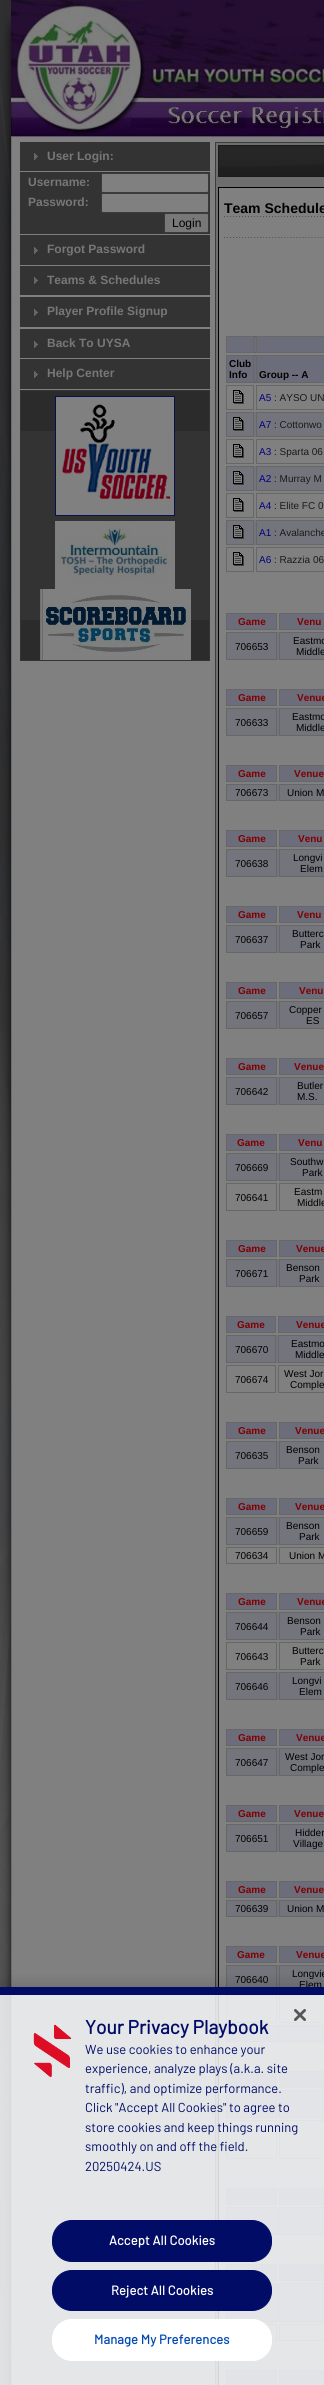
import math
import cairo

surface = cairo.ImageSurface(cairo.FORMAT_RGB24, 324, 2385)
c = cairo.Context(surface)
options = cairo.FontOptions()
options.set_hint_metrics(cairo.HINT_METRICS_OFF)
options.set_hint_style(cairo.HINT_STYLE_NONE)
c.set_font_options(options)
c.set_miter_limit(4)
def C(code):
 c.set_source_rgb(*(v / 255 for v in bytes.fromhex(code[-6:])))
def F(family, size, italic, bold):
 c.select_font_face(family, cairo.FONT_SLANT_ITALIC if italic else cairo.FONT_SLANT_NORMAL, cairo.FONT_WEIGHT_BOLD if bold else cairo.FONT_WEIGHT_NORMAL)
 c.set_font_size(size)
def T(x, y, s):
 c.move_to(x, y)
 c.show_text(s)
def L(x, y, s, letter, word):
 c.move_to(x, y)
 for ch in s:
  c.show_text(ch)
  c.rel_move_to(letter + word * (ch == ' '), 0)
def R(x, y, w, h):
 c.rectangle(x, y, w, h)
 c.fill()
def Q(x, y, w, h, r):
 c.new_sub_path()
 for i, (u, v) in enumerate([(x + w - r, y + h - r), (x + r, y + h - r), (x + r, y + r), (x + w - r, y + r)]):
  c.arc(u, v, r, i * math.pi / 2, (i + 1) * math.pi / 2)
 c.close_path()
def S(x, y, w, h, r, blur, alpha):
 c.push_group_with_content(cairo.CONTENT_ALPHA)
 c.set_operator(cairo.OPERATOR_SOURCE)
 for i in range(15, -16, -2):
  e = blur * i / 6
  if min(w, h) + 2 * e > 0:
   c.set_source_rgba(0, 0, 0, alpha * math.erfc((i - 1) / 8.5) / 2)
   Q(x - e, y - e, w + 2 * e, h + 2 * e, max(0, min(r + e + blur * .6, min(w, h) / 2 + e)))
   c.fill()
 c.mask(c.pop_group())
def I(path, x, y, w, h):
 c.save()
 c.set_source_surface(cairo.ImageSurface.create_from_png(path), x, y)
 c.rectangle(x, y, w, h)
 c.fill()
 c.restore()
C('ffffff')
c.paint()
I('1.png',0,0,11,2385)
I('2.png',3,15,8,122)
I('3.png',11,0,313,137)
I('4.png',1,137,209,2248)
C('333333')
R(20,142,190,29)
I('5.png',34,153,4,7)
F('Liberation Sans',12,0,1)
C('777777')
T(47,160,'User Login:')
C('333333')
R(20,172,190,62)
C('777777')
T(28,186,'Username:')
C('808080')
Q(101.5,173.5,107,19,1.5)
c.fill_preserve()
C('3b3b3b')
c.set_line_width(1)
c.stroke()
C('777777')
T(28,206,'Password:')
C('808080')
Q(101.5,193.5,107,19,1.5)
c.fill_preserve()
C('3b3b3b')
c.stroke()
C('787878')
Q(164.5,213.5,44,19,1.5)
c.fill_preserve()
C('3b3b3b')
c.stroke()
F('Liberation Sans',12,0,0)
C('000000')
T(172,227,'Login')
C('333333')
R(20,235,190,30)
I('5.png',34,247,4,7)
F('Liberation Sans',12,0,1)
C('777777')
T(47,253,'Forgot Password')
C('333333')
R(20,266,190,29)
I('5.png',34,277,4,7)
C('777777')
T(47,284,'Teams & Schedules')
C('333333')
R(20,297,190,30)
I('5.png',34,309,4,7)
C('777777')
T(47,315,'Player Profile Signup')
C('333333')
R(20,329,190,29)
I('5.png',34,341,4,7)
C('777777')
T(47,347,'Back To UYSA')
C('333333')
R(20,359,190,30)
I('5.png',34,371,4,7)
C('777777')
T(47,377,'Help Center')
C('2b2b2b')
R(21,391,188,269)
C('333333')
R(21,431,188,189)
c.rectangle(20.5,390.5,189,270)
c.stroke()
I('6.png',55,396,120,120)
I('7.png',55,521,120,68)
I('8.png',40,589,151,71)
C('808080')
R(210,137,114,2248)
C('6e6e6e')
c.rectangle(215.5,142.5,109,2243)
c.fill_preserve()
C('3c3c3c')
c.stroke()
I('9.png',219,146,105,30)
c.rectangle(218.5,145.5,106,31)
C('1a1a1a')
c.stroke()
C('808080')
c.rectangle(218.5,187.5,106,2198)
c.fill_preserve()
C('000000')
c.stroke()
F('Liberation Sans',14,0,1)
T(224,213,'Team Schedule')
I('10.png',224,216,100,1)
I('11.png',224,237,100,1)
C('6b6d7a')
c.rectangle(226.5,336.5,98,16)
c.fill_preserve()
C('586070')
c.stroke()
c.rectangle(226.5,336.5,27,16)
C('686868')
c.stroke()
c.rectangle(256.5,336.5,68,16)
c.stroke()
C('6b6d7a')
c.rectangle(226.5,355.5,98,27)
c.fill_preserve()
C('586070')
c.stroke()
c.rectangle(226.5,355.5,27,27)
C('676767')
c.stroke()
F('Liberation Sans',10,0,1)
C('000000')
T(229,367,'Club')
T(229,378,'Info')
c.rectangle(256.5,355.5,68,27)
C('676767')
c.stroke()
C('000000')
T(259,378,'Group -- A')
c.rectangle(226.5,385.5,27,24)
C('676767')
c.stroke()
I('12.png',233,390,11,14)
c.rectangle(256.5,385.5,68,24)
c.stroke()
F('Liberation Sans',10,0,0)
C('000080')
T(259,401,'A5')
C('1a1a1a')
T(274,401,': AYSO UN')
C('74757c')
R(227,412,97,25)
c.rectangle(226.5,412.5,27,24)
C('676767')
c.stroke()
I('13.png',233,417,11,14)
c.rectangle(256.5,412.5,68,24)
c.stroke()
C('000080')
T(259,428,'A7')
C('1a1a1a')
T(274,428,': Cottonwo')
c.rectangle(226.5,439.5,27,24)
C('676767')
c.stroke()
I('12.png',233,444,11,14)
c.rectangle(256.5,439.5,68,24)
c.stroke()
C('000080')
T(259,455,'A3')
C('1a1a1a')
T(274,455,': Sparta 06')
C('74757c')
R(227,466,97,25)
c.rectangle(226.5,466.5,27,24)
C('676767')
c.stroke()
I('13.png',233,471,11,14)
c.rectangle(256.5,466.5,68,24)
c.stroke()
C('000080')
T(259,482,'A2')
C('1a1a1a')
T(274,482,': Murray M')
c.rectangle(226.5,493.5,27,24)
C('676767')
c.stroke()
I('12.png',233,498,11,14)
c.rectangle(256.5,493.5,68,24)
c.stroke()
C('000080')
T(259,509,'A4')
C('1a1a1a')
T(274,509,': Elite FC 0')
C('74757c')
R(227,520,97,25)
c.rectangle(226.5,520.5,27,24)
C('676767')
c.stroke()
I('13.png',233,525,11,14)
c.rectangle(256.5,520.5,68,24)
c.stroke()
C('000080')
T(259,536,'A1')
C('1a1a1a')
T(274,536,': Avalanche')
c.rectangle(226.5,547.5,27,24)
C('676767')
c.stroke()
I('12.png',233,552,11,14)
c.rectangle(256.5,547.5,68,24)
c.stroke()
C('000080')
T(259,563,'A6')
C('1a1a1a')
T(274,563,': Razzia 06')
C('6b6d7a')
c.rectangle(226.5,613.5,50,16)
c.fill_preserve()
C('676767')
c.stroke()
F('Liberation Sans',10,0,1)
C('800000')
T(238,625,'Game')
C('6b6d7a')
c.rectangle(279.5,613.5,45,16)
c.fill_preserve()
C('676767')
c.stroke()
C('800000')
T(297,625,'Venu')
C('74757c')
R(227,632,97,28)
c.rectangle(226.5,632.5,50,27)
C('676767')
c.stroke()
F('Liberation Sans',10,0,0)
C('000000')
T(235,650,'706653')
c.rectangle(279.5,632.5,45,27)
C('676767')
c.stroke()
C('000000')
T(293,644,'Eastmo')
T(296,655,'Middle')
C('6b6d7a')
c.rectangle(226.5,689.5,50,16)
c.fill_preserve()
C('676767')
c.stroke()
F('Liberation Sans',10,0,1)
C('800000')
T(238,701,'Game')
C('6b6d7a')
c.rectangle(279.5,689.5,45,16)
c.fill_preserve()
C('676767')
c.stroke()
C('800000')
T(297,701,'Venue')
C('74757c')
R(227,708,97,28)
c.rectangle(226.5,708.5,50,27)
C('676767')
c.stroke()
F('Liberation Sans',10,0,0)
C('000000')
T(235,726,'706633')
c.rectangle(279.5,708.5,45,27)
C('676767')
c.stroke()
C('000000')
T(292,720,'Eastmo')
T(296,731,'Middle')
C('6b6d7a')
c.rectangle(226.5,765.5,50,16)
c.fill_preserve()
C('676767')
c.stroke()
F('Liberation Sans',10,0,1)
C('800000')
T(238,777,'Game')
C('6b6d7a')
c.rectangle(279.5,765.5,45,16)
c.fill_preserve()
C('676767')
c.stroke()
C('800000')
T(294,777,'Venue')
C('74757c')
R(227,784,97,17)
c.rectangle(226.5,784.5,50,16)
C('676767')
c.stroke()
F('Liberation Sans',10,0,0)
C('000000')
T(235,796,'706673')
c.rectangle(279.5,784.5,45,16)
C('676767')
c.stroke()
C('000000')
T(287,796,'Union M')
C('6b6d7a')
c.rectangle(226.5,830.5,50,16)
c.fill_preserve()
C('676767')
c.stroke()
F('Liberation Sans',10,0,1)
C('800000')
T(238,842,'Game')
C('6b6d7a')
c.rectangle(279.5,830.5,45,16)
c.fill_preserve()
C('676767')
c.stroke()
C('800000')
T(298,842,'Venu')
C('74757c')
R(227,849,97,28)
c.rectangle(226.5,849.5,50,27)
C('676767')
c.stroke()
F('Liberation Sans',10,0,0)
C('000000')
T(235,867,'706638')
c.rectangle(279.5,849.5,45,27)
C('676767')
c.stroke()
C('000000')
T(293,861,'Longvi')
T(300,872,'Elem')
C('6b6d7a')
c.rectangle(226.5,906.5,50,16)
c.fill_preserve()
C('676767')
c.stroke()
F('Liberation Sans',10,0,1)
C('800000')
T(238,918,'Game')
C('6b6d7a')
c.rectangle(279.5,906.5,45,16)
c.fill_preserve()
C('676767')
c.stroke()
C('800000')
T(297,918,'Venu')
C('74757c')
R(227,925,97,28)
c.rectangle(226.5,925.5,50,27)
C('676767')
c.stroke()
F('Liberation Sans',10,0,0)
C('000000')
T(235,943,'706637')
c.rectangle(279.5,925.5,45,27)
C('676767')
c.stroke()
C('000000')
T(292,937,'Butterc')
T(300,948,'Park')
C('6b6d7a')
c.rectangle(226.5,982.5,50,16)
c.fill_preserve()
C('676767')
c.stroke()
F('Liberation Sans',10,0,1)
C('800000')
T(238,994,'Game')
C('6b6d7a')
c.rectangle(279.5,982.5,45,16)
c.fill_preserve()
C('676767')
c.stroke()
C('800000')
T(299,994,'Venu')
C('74757c')
R(227,1001,97,28)
c.rectangle(226.5,1001.5,50,27)
C('676767')
c.stroke()
F('Liberation Sans',10,0,0)
C('000000')
T(235,1019,'706657')
c.rectangle(279.5,1001.5,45,27)
C('676767')
c.stroke()
C('000000')
T(289,1013,'Copper')
T(306,1024,'ES')
C('6b6d7a')
c.rectangle(226.5,1058.5,50,16)
c.fill_preserve()
C('676767')
c.stroke()
F('Liberation Sans',10,0,1)
C('800000')
T(238,1070,'Game')
C('6b6d7a')
c.rectangle(279.5,1058.5,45,16)
c.fill_preserve()
C('676767')
c.stroke()
C('800000')
T(294,1070,'Venue')
C('74757c')
R(227,1077,97,28)
c.rectangle(226.5,1077.5,50,27)
C('676767')
c.stroke()
F('Liberation Sans',10,0,0)
C('000000')
T(235,1095,'706642')
c.rectangle(279.5,1077.5,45,27)
C('676767')
c.stroke()
C('000000')
T(297,1089,'Butler')
T(297,1100,'M.S.')
C('6b6d7a')
c.rectangle(226.5,1134.5,50,16)
c.fill_preserve()
C('676767')
c.stroke()
F('Liberation Sans',10,0,1)
C('800000')
T(237,1146,'Game')
C('6b6d7a')
c.rectangle(279.5,1134.5,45,16)
c.fill_preserve()
C('676767')
c.stroke()
C('800000')
T(298,1146,'Venu')
C('74757c')
R(227,1153,97,28)
c.rectangle(226.5,1153.5,50,27)
C('676767')
c.stroke()
F('Liberation Sans',10,0,0)
C('000000')
T(235,1171,'706669')
c.rectangle(279.5,1153.5,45,27)
C('676767')
c.stroke()
C('000000')
T(290,1165,'Southw')
T(302,1176,'Park')
c.rectangle(226.5,1183.5,50,27)
C('676767')
c.stroke()
C('000000')
T(235,1201,'706641')
c.rectangle(279.5,1183.5,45,27)
C('676767')
c.stroke()
C('000000')
T(294,1195,'Eastm')
T(297,1206,'Middle')
C('6b6d7a')
c.rectangle(226.5,1240.5,50,16)
c.fill_preserve()
C('676767')
c.stroke()
F('Liberation Sans',10,0,1)
C('800000')
T(238,1252,'Game')
C('6b6d7a')
c.rectangle(279.5,1240.5,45,16)
c.fill_preserve()
C('676767')
c.stroke()
C('800000')
T(296,1252,'Venue')
C('74757c')
R(227,1259,97,28)
c.rectangle(226.5,1259.5,50,27)
C('676767')
c.stroke()
F('Liberation Sans',10,0,0)
C('000000')
T(235,1277,'706671')
c.rectangle(279.5,1259.5,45,27)
C('676767')
c.stroke()
C('000000')
T(286,1271,'Benson')
T(299,1282,'Park')
C('6b6d7a')
c.rectangle(226.5,1316.5,49,16)
c.fill_preserve()
C('676767')
c.stroke()
F('Liberation Sans',10,0,1)
C('800000')
T(237,1328,'Game')
C('6b6d7a')
c.rectangle(278.5,1316.5,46,16)
c.fill_preserve()
C('676767')
c.stroke()
C('800000')
T(296,1328,'Venue')
C('74757c')
R(227,1335,97,28)
c.rectangle(226.5,1335.5,49,27)
C('676767')
c.stroke()
F('Liberation Sans',10,0,0)
C('000000')
T(235,1353,'706670')
c.rectangle(278.5,1335.5,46,27)
C('676767')
c.stroke()
C('000000')
T(291,1347,'Eastmo')
T(295,1358,'Middle')
c.rectangle(226.5,1365.5,49,27)
C('676767')
c.stroke()
C('000000')
T(235,1383,'706674')
c.rectangle(278.5,1365.5,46,27)
C('676767')
c.stroke()
C('000000')
T(284,1377,'West Jor')
T(290,1388,'Comple')
C('6b6d7a')
c.rectangle(226.5,1422.5,50,16)
c.fill_preserve()
C('676767')
c.stroke()
F('Liberation Sans',10,0,1)
C('800000')
T(238,1434,'Game')
C('6b6d7a')
c.rectangle(279.5,1422.5,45,16)
c.fill_preserve()
C('676767')
c.stroke()
C('800000')
T(295,1434,'Venue')
C('74757c')
R(227,1441,97,28)
c.rectangle(226.5,1441.5,50,27)
C('676767')
c.stroke()
F('Liberation Sans',10,0,0)
C('000000')
T(235,1459,'706635')
c.rectangle(279.5,1441.5,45,27)
C('676767')
c.stroke()
C('000000')
T(286,1453,'Benson')
T(298,1464,'Park')
C('6b6d7a')
c.rectangle(226.5,1498.5,50,16)
c.fill_preserve()
C('676767')
c.stroke()
F('Liberation Sans',10,0,1)
C('800000')
T(238,1510,'Game')
C('6b6d7a')
c.rectangle(279.5,1498.5,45,16)
c.fill_preserve()
C('676767')
c.stroke()
C('800000')
T(295,1510,'Venue')
C('74757c')
R(227,1517,97,28)
c.rectangle(226.5,1517.5,50,27)
C('676767')
c.stroke()
F('Liberation Sans',10,0,0)
C('000000')
T(235,1535,'706659')
c.rectangle(279.5,1517.5,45,27)
C('676767')
c.stroke()
C('000000')
T(286,1529,'Benson')
T(299,1540,'Park')
c.rectangle(226.5,1547.5,50,16)
C('676767')
c.stroke()
C('000000')
T(235,1559,'706634')
c.rectangle(279.5,1547.5,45,16)
C('676767')
c.stroke()
C('000000')
T(289,1559,'Union M')
C('6b6d7a')
c.rectangle(226.5,1593.5,50,16)
c.fill_preserve()
C('676767')
c.stroke()
F('Liberation Sans',10,0,1)
C('800000')
T(238,1605,'Game')
C('6b6d7a')
c.rectangle(279.5,1593.5,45,16)
c.fill_preserve()
C('676767')
c.stroke()
C('800000')
T(297,1605,'Venue')
C('74757c')
R(227,1612,97,28)
c.rectangle(226.5,1612.5,50,27)
C('676767')
c.stroke()
F('Liberation Sans',10,0,0)
C('000000')
T(235,1630,'706644')
c.rectangle(279.5,1612.5,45,27)
C('676767')
c.stroke()
C('000000')
T(287,1624,'Benson')
T(300,1635,'Park')
c.rectangle(226.5,1642.5,50,27)
C('676767')
c.stroke()
C('000000')
T(235,1660,'706643')
c.rectangle(279.5,1642.5,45,27)
C('676767')
c.stroke()
C('000000')
T(292,1654,'Butterc')
T(300,1665,'Park')
C('74757c')
R(227,1672,97,28)
c.rectangle(226.5,1672.5,50,27)
C('676767')
c.stroke()
C('000000')
T(235,1690,'706646')
c.rectangle(279.5,1672.5,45,27)
C('676767')
c.stroke()
C('000000')
T(292,1684,'Longvi')
T(299,1695,'Elem')
C('6b6d7a')
c.rectangle(226.5,1729.5,50,16)
c.fill_preserve()
C('676767')
c.stroke()
F('Liberation Sans',10,0,1)
C('800000')
T(238,1741,'Game')
C('6b6d7a')
c.rectangle(279.5,1729.5,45,16)
c.fill_preserve()
C('676767')
c.stroke()
C('800000')
T(296,1741,'Venue')
C('74757c')
R(227,1748,97,28)
c.rectangle(226.5,1748.5,50,27)
C('676767')
c.stroke()
F('Liberation Sans',10,0,0)
C('000000')
T(235,1766,'706647')
c.rectangle(279.5,1748.5,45,27)
C('676767')
c.stroke()
C('000000')
T(285,1760,'West Jor')
T(290,1771,'Comple')
C('6b6d7a')
c.rectangle(226.5,1805.5,50,16)
c.fill_preserve()
C('676767')
c.stroke()
F('Liberation Sans',10,0,1)
C('800000')
T(238,1817,'Game')
C('6b6d7a')
c.rectangle(279.5,1805.5,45,16)
c.fill_preserve()
C('676767')
c.stroke()
C('800000')
T(294,1817,'Venue')
C('74757c')
R(227,1824,97,28)
c.rectangle(226.5,1824.5,50,27)
C('676767')
c.stroke()
F('Liberation Sans',10,0,0)
C('000000')
T(235,1842,'706651')
c.rectangle(279.5,1824.5,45,27)
C('676767')
c.stroke()
C('000000')
T(295,1836,'Hidden')
T(293,1847,'Village')
C('6b6d7a')
c.rectangle(226.5,1881.5,50,16)
c.fill_preserve()
C('676767')
c.stroke()
F('Liberation Sans',10,0,1)
C('800000')
T(238,1893,'Game')
C('6b6d7a')
c.rectangle(279.5,1881.5,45,16)
c.fill_preserve()
C('676767')
c.stroke()
C('800000')
T(294,1893,'Venue')
C('74757c')
R(227,1900,97,17)
c.rectangle(226.5,1900.5,50,16)
C('676767')
c.stroke()
F('Liberation Sans',10,0,0)
C('000000')
T(235,1912,'706639')
c.rectangle(279.5,1900.5,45,16)
C('676767')
c.stroke()
C('000000')
T(287,1912,'Union M')
C('6b6d7a')
c.rectangle(226.5,1946.5,50,16)
c.fill_preserve()
C('676767')
c.stroke()
F('Liberation Sans',10,0,1)
C('800000')
T(237,1958,'Game')
C('6b6d7a')
c.rectangle(279.5,1946.5,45,16)
c.fill_preserve()
C('676767')
c.stroke()
C('800000')
T(296,1958,'Venue')
C('74757c')
R(227,1965,97,22)
c.rectangle(226.5,1965.5,50,27)
C('676767')
c.stroke()
F('Liberation Sans',10,0,0)
C('000000')
T(235,1983,'706640')
c.rectangle(279.5,1965.5,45,27)
C('676767')
c.stroke()
C('000000')
T(292,1977,'Longvie')
T(299,1988,'Elem')
c.rectangle(226.5,1995.5,50,27)
C('676767')
c.stroke()
c.rectangle(279.5,1995.5,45,27)
c.stroke()
C('74757c')
R(227,2025,97,17)
c.rectangle(226.5,2025.5,50,16)
C('676767')
c.stroke()
c.rectangle(279.5,2025.5,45,16)
c.stroke()
C('6b6d7a')
c.rectangle(226.5,2071.5,50,16)
c.fill_preserve()
C('676767')
c.stroke()
C('6b6d7a')
c.rectangle(279.5,2071.5,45,16)
c.fill_preserve()
C('676767')
c.stroke()
C('74757c')
R(227,2090,97,28)
c.rectangle(226.5,2090.5,50,27)
C('676767')
c.stroke()
c.rectangle(279.5,2090.5,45,27)
c.stroke()
c.rectangle(226.5,2120.5,50,38)
c.stroke()
c.rectangle(279.5,2120.5,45,38)
c.stroke()
C('6b6d7a')
c.rectangle(226.5,2188.5,50,16)
c.fill_preserve()
C('676767')
c.stroke()
C('6b6d7a')
c.rectangle(279.5,2188.5,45,16)
c.fill_preserve()
C('676767')
c.stroke()
C('74757c')
R(227,2207,97,28)
c.rectangle(226.5,2207.5,50,27)
C('676767')
c.stroke()
c.rectangle(279.5,2207.5,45,27)
c.stroke()
C('6b6d7a')
c.rectangle(226.5,2264.5,50,16)
c.fill_preserve()
C('676767')
c.stroke()
C('6b6d7a')
c.rectangle(279.5,2264.5,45,16)
c.fill_preserve()
C('676767')
c.stroke()
C('74757c')
R(227,2283,97,39)
c.rectangle(226.5,2283.5,50,38)
C('676767')
c.stroke()
c.rectangle(279.5,2283.5,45,38)
c.stroke()
c.rectangle(226.5,2324.5,50,16)
c.stroke()
c.rectangle(279.5,2324.5,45,16)
c.stroke()
C('6b6d7a')
c.rectangle(226.5,2370.5,50,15)
c.fill_preserve()
C('676767')
c.stroke()
C('6b6d7a')
c.rectangle(279.5,2370.5,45,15)
c.fill_preserve()
C('676767')
c.stroke()
c.save()
c.rectangle(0,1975,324,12)
c.clip()
C('000000')
S(0,1987,324,398,0,9,.2)
c.restore()
c.set_source_rgba(0.961,0.973,0.98,0.85)
R(0,1995,324,390)
I('14.png',294,2009,12,12)
C('000c66')
R(0,1987,324,8)
I('15.png',33,2024,39,54)
F('Barlow',19.25,0,1)
T(85,2034,'Your Privacy Playbook')
F('Barlow',13,0,0)
T(85,2054,'We use cookies to enhance your')
T(85,2073,'experience, analyze plays (a.k.a. site')
T(85,2093,'traffic), and optimize performance.')
T(85,2112,'Click "Accept All Cookies" to agree to')
T(85,2132,'store cookies and keep things running')
T(85,2151,'smoothly on and off the field.')
T(85,2171,'20250424.US')
Q(52.5,2220.5,219,41,19.5)
c.fill_preserve()
c.stroke()
F('Barlow',13,0,1)
C('ffffff')
L(109,2245,'Accept All Cookies',.1,0)
C('000c66')
Q(52.5,2270.5,219,40,19.5)
c.fill_preserve()
c.stroke()
C('ffffff')
L(111,2295,'Reject All Cookies',.1,0)
Q(52.5,2319.5,219,41,19.5)
c.fill_preserve()
c.stroke()
C('0049b3')
L(94,2344,'Manage My Preferences',.1,0)
surface.write_to_png('o.png')
